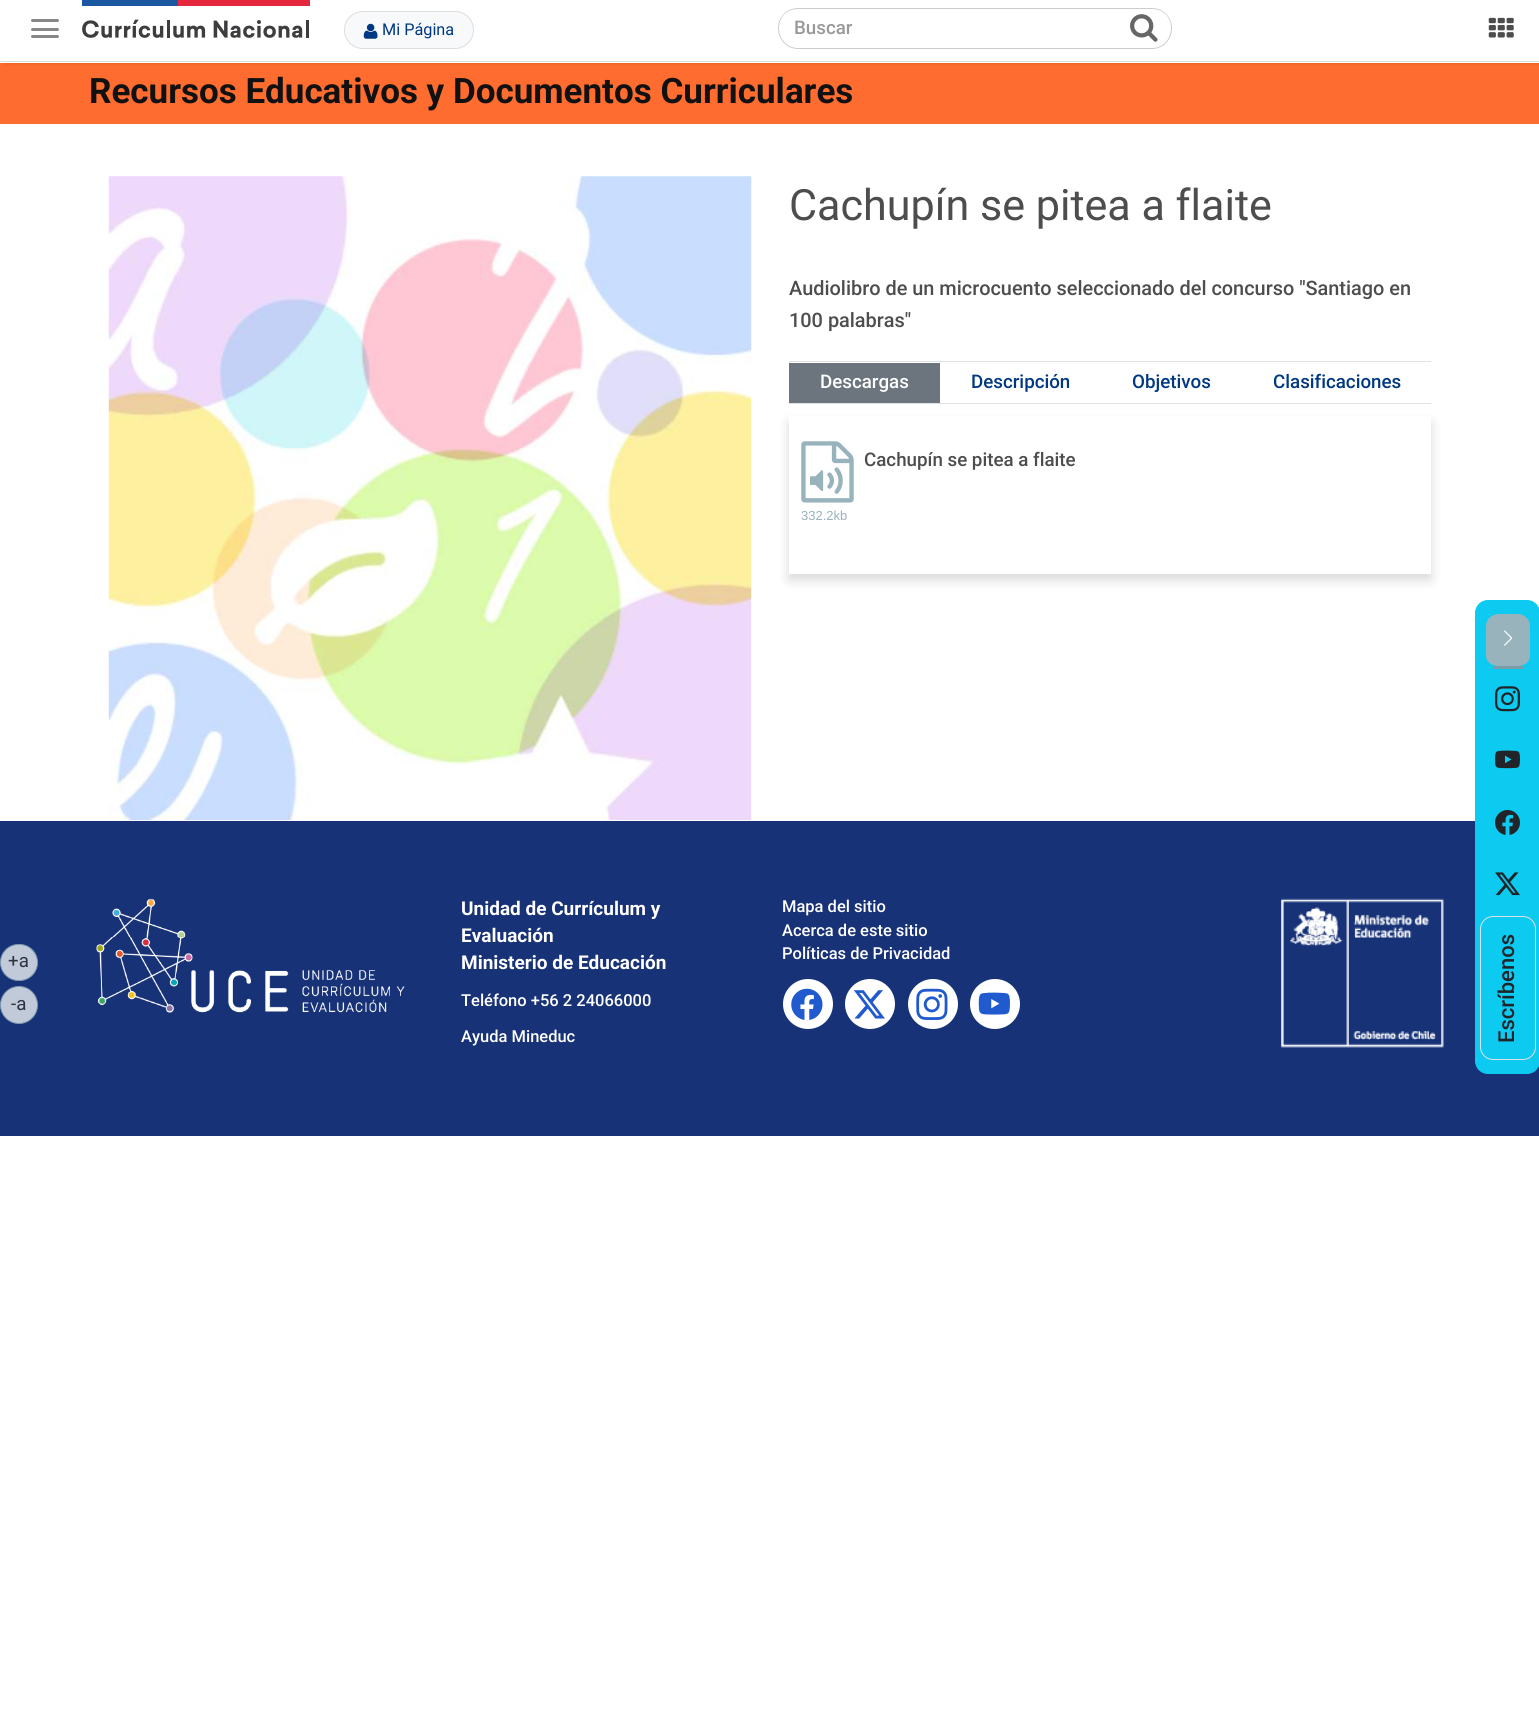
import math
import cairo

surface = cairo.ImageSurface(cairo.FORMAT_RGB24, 1539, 1714)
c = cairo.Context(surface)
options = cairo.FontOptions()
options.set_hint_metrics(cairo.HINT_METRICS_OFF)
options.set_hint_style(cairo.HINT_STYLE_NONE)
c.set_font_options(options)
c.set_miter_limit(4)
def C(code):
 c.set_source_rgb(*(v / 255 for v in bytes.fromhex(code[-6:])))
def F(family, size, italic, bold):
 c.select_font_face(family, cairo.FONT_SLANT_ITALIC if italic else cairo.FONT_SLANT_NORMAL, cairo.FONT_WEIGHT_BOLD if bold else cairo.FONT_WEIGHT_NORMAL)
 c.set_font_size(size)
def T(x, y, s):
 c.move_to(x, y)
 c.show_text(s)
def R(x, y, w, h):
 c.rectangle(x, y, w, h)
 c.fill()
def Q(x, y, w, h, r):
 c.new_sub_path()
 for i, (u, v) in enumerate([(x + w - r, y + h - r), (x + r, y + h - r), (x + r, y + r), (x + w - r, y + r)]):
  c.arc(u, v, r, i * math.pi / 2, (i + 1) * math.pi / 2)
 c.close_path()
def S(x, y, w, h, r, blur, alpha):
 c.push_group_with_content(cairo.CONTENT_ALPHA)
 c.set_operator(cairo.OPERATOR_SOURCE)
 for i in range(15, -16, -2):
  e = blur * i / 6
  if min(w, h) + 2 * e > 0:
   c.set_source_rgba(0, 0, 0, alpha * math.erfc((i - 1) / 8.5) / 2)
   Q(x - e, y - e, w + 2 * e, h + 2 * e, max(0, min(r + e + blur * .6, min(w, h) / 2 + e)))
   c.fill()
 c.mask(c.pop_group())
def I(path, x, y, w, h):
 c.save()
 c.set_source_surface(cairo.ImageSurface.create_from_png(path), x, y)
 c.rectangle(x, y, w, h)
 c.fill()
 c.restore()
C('ffffff')
c.paint()
C('ff6c2f')
R(0,63,1539,61)
C('000000')
S(5,0,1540,63,0,2.5,.15)
C('ffffff')
R(1,0,1538,63)
C('dddddd')
R(0,61,1539,1)
C('888888')
Q(31,19,28,3,1.5)
c.fill()
Q(31,28,28,3,1.5)
c.fill()
Q(31,35,28,3,1.5)
c.fill()
I('1.png',82,0,228,38)
C('f8f9fa')
Q(344.5,11.5,129,37,18.5)
c.fill_preserve()
C('dddddd')
c.set_line_width(1)
c.stroke()
I('2.png',363,23,15,16)
F('Roboto',16.25,0,0)
C('003882')
T(382,35,'Mi Página')
C('cccccc')
c.set_fill_rule(cairo.FILL_RULE_EVEN_ODD)
c.new_path()
c.move_to(798,8)
c.line_to(1125,8)
c.line_to(1125,49)
c.line_to(798,49)
c.curve_to(787,49,778,40,778,28)
c.curve_to(778,17,787,8,798,8)
c.close_path()
c.move_to(798,9)
c.line_to(1125,9)
c.line_to(1125,48)
c.line_to(798,48)
c.curve_to(787,48,779,39,779,28)
c.curve_to(779,17,787,9,798,9)
c.close_path()
c.fill()
F('Roboto Medium',18.75,0,0)
C('999999')
T(794,34,'Buscar')
C('cccccc')
c.new_path()
c.move_to(1125,8)
c.line_to(1152,8)
c.curve_to(1163,8,1172,17,1172,28)
c.curve_to(1172,40,1163,49,1152,49)
c.line_to(1125,49)
c.close_path()
c.move_to(1125,9)
c.line_to(1152,9)
c.curve_to(1163,9,1171,17,1171,28)
c.curve_to(1171,39,1163,48,1152,48)
c.line_to(1125,48)
c.close_path()
c.fill()
I('3.png',1130,14,28,28)
I('4.png',1488,17,26,21)
F('Roboto',35,0,1)
C('111111')
T(89,103,'Recursos Educativos y Documentos Curriculares')
I('5.png',108,176,644,644)
F('Roboto',43.1,0,0)
C('4d4d4d')
T(789,220,'Cachupín se pitea a flaite')
F('Roboto Medium',19.9,0,0)
T(789,295,'Audiolibro de un microcuento seleccionado del concurso "Santiago en')
T(789,327,'100 palabras"')
C('dee2e6')
R(789,361,642,1)
R(789,403,642,1)
C('6c757d')
R(789,363,151,40)
F('Roboto Medium',18.75,0,0)
C('ffffff')
T(820,388,'Descargas')
C('003882')
T(971,388,'Descripción')
T(1132,388,'Objetivos')
T(1273,388,'Clasificaciones')
c.save()
c.new_path()
c.move_to(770,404)
c.line_to(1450,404)
c.line_to(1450,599)
c.line_to(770,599)
c.close_path()
c.move_to(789,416)
c.line_to(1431,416)
c.line_to(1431,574)
c.line_to(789,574)
c.close_path()
c.clip()
C('000000')
S(789,423,642,157,0,6,.15)
c.restore()
I('6.png',801,441,53,62)
C('4d4d4d')
T(864,466,'Cachupín se pitea a flaite')
F('Liberation Sans',13,0,0)
C('98b3bc')
T(801,520,'332.2kb')
C('173277')
R(0,821,1539,315)
C('c1cad9')
Q(.5,944.5,37,36,18)
c.fill_preserve()
C('7e99ae')
c.stroke()
F('Roboto',18.75,0,0)
C('2d3341')
T(8,967,'+a')
C('c1cad9')
c.new_path()
c.arc(19,1005,18.5,0,2 * math.pi)
c.fill_preserve()
C('7e99ae')
c.stroke()
C('2d3341')
T(11,1010,'-a')
I('7.png',96,898,309,115)
F('Roboto',19,0,1)
C('ffffff')
T(461,915,'Unidad de Currículum y')
T(461,942,'Evaluación')
T(461,969,'Ministerio de Educación')
F('Roboto Medium',16.5,0,0)
T(461,1006,'Teléfono +56 2 24066000')
T(461,1042,'Ayuda Mineduc')
T(782,912,'Mapa del sitio')
T(782,936,'Acerca de este sitio')
T(782,959,'Políticas de Privacidad')
c.new_path()
c.arc(808,1004,25,0,2 * math.pi)
c.fill()
I('8.png',791,988,32,32)
c.arc(870,1004,25,0,2 * math.pi)
c.fill()
I('9.png',853,990,32,29)
c.arc(933,1004,25,0,2 * math.pi)
c.fill()
I('10.png',916,988,32,32)
c.arc(995,1004,25,0,2 * math.pi)
c.fill()
I('11.png',978,992,32,23)
I('12.png',1281,898,163,150)
C('0dcaf0')
Q(1475.5,600.5,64,473,12.5)
c.fill_preserve()
c.stroke()
C('98b3bc')
c.set_fill_rule(cairo.FILL_RULE_WINDING)
c.new_path()
c.move_to(1499,614)
c.line_to(1518,614)
c.curve_to(1524,614,1530,619,1530,626)
c.line_to(1530,656)
c.curve_to(1530,662,1524,666,1518,666)
c.line_to(1499,666)
c.curve_to(1492,666,1486,662,1486,656)
c.line_to(1486,626)
c.curve_to(1486,619,1492,614,1499,614)
c.close_path()
c.fill()
C('799ca8')
R(1493,666,31,3)
I('13.png',1504,630,9,16)
I('14.png',1495,686,25,26)
I('15.png',1495,750,25,19)
I('16.png',1495,810,25,25)
I('17.png',1495,872,25,24)
Q(1480.5,916.5,55,143,12.5)
C('dee2e6')
c.stroke()
F('Roboto Medium',22,0,0)
C('212529')
c.save()
c.translate(1514,1043)
c.rotate(-90 * math.pi / 180)
T(0,0,'Escríbenos')
c.restore()
surface.write_to_png('o.png')
